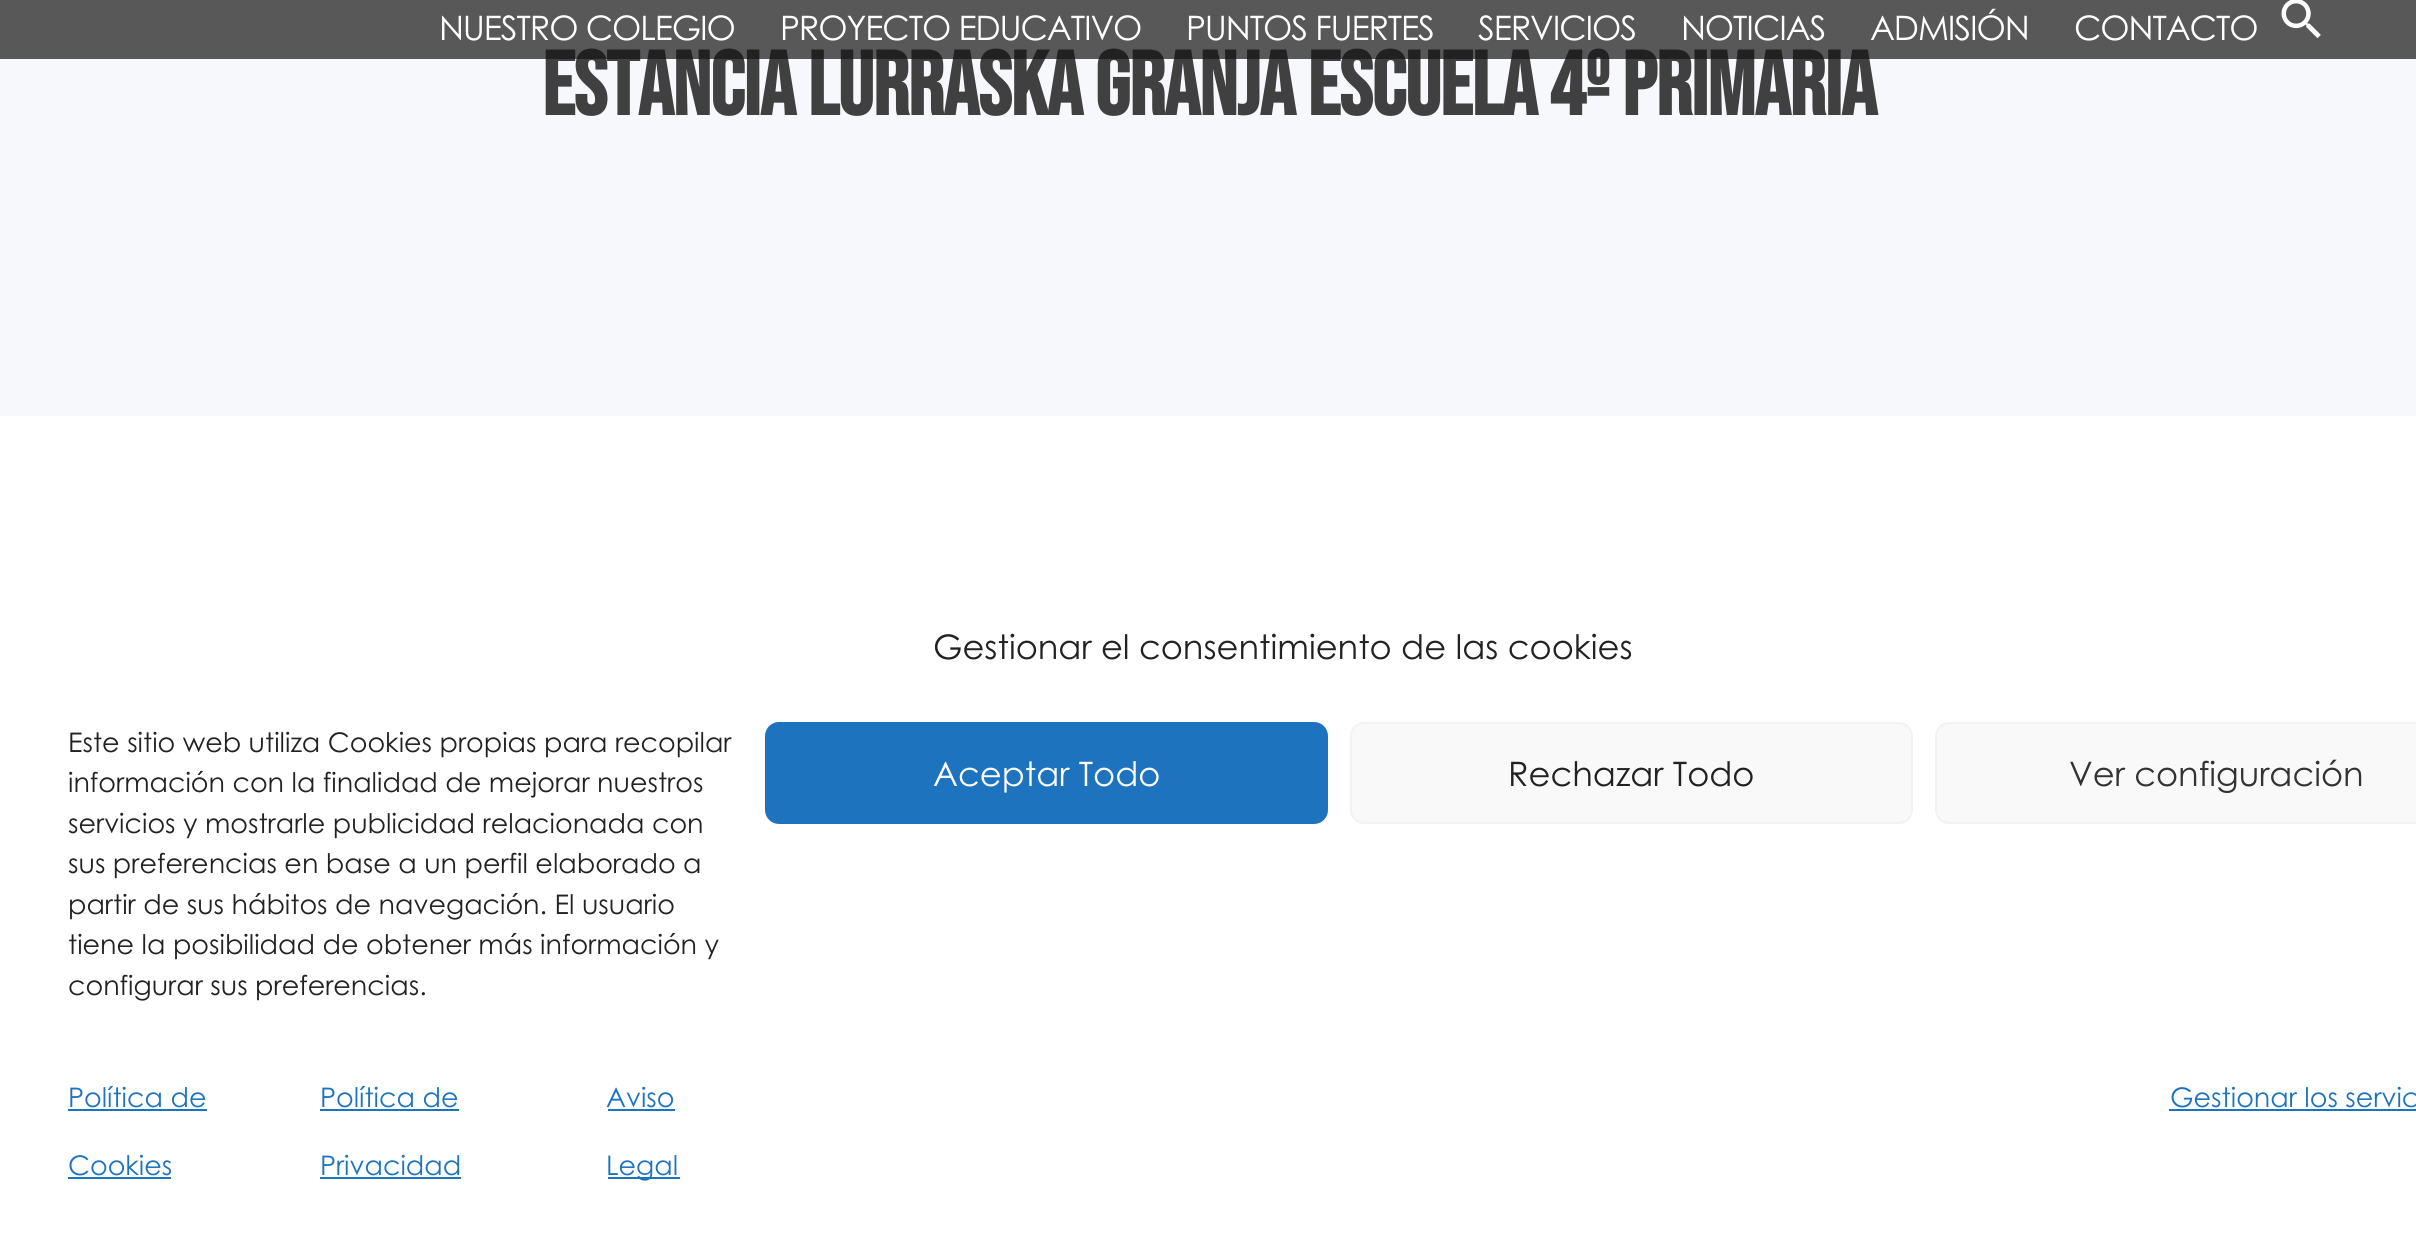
import math
import cairo

surface = cairo.ImageSurface(cairo.FORMAT_RGB24, 2416, 1253)
c = cairo.Context(surface)
options = cairo.FontOptions()
options.set_hint_metrics(cairo.HINT_METRICS_OFF)
options.set_hint_style(cairo.HINT_STYLE_NONE)
c.set_font_options(options)
c.set_miter_limit(4)
def C(code):
 c.set_source_rgb(*(v / 255 for v in bytes.fromhex(code[-6:])))
def F(family, size, italic, bold):
 c.select_font_face(family, cairo.FONT_SLANT_ITALIC if italic else cairo.FONT_SLANT_NORMAL, cairo.FONT_WEIGHT_BOLD if bold else cairo.FONT_WEIGHT_NORMAL)
 c.set_font_size(size)
def T(x, y, s):
 c.move_to(x, y)
 c.show_text(s)
def L(x, y, s, letter, word):
 c.move_to(x, y)
 for ch in s:
  c.show_text(ch)
  c.rel_move_to(letter + word * (ch == ' '), 0)
def R(x, y, w, h):
 c.rectangle(x, y, w, h)
 c.fill()
def Q(x, y, w, h, r):
 c.new_sub_path()
 for i, (u, v) in enumerate([(x + w - r, y + h - r), (x + r, y + h - r), (x + r, y + r), (x + w - r, y + r)]):
  c.arc(u, v, r, i * math.pi / 2, (i + 1) * math.pi / 2)
 c.close_path()
def I(path, x, y, w, h):
 c.save()
 c.set_source_surface(cairo.ImageSurface.create_from_png(path), x, y)
 c.rectangle(x, y, w, h)
 c.fill()
 c.restore()
C('ffffff')
c.paint()
C('f7f8fc')
R(0,0,2416,416)
F('Bebas Neue',90,0,1)
C('404040')
L(542,115,'Estancia Lurraska Granja Escuela 4º primaria',-1.1,0)
c.set_source_rgba(0.082,0.082,0.082,0.7)
R(0,0,2416,59)
F('Century Gothic',33.75,0,0)
C('ffffff')
L(439,40,'NUESTRO COLEGIO',-1.1,0)
L(780,40,'PROYECTO EDUCATIVO',-1.1,0)
L(1186,40,'PUNTOS FUERTES',-1.1,0)
L(1478,40,'SERVICIOS',-1.1,0)
L(1681,40,'NOTICIAS',-1.1,0)
L(1870,40,'ADMISIÓN',-1.1,0)
L(2074,40,'CONTACTO',-1.1,0)
I('1.png',2281,0,40,39)
C('222222')
T(933,659,'Gestionar el consentimiento de las cookies')
F('Century Gothic',27,0,0)
T(68,752,'Este sitio web utiliza Cookies propias para recopilar')
T(68,792,'información con la finalidad de mejorar nuestros')
T(68,833,'servicios y mostrarle publicidad relacionada con')
T(68,873,'sus preferencias en base a un perfil elaborado a')
T(68,914,'partir de sus hábitos de navegación. El usuario')
T(68,954,'tiene la posibilidad de obtener más información y')
T(68,995,'configurar sus preferencias.')
C('1e73be')
Q(766,723,561,100,13)
c.fill_preserve()
c.stroke()
F('Century Gothic',33.75,0,0)
C('ffffff')
T(933,786,'Aceptar Todo')
C('f9f9f9')
Q(1351,723,561,100,13)
c.fill_preserve()
C('f2f2f2')
c.stroke()
C('222222')
T(1508,786,'Rechazar Todo')
C('f9f9f9')
Q(1936,723,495,100,13)
c.fill_preserve()
C('f2f2f2')
c.stroke()
C('333333')
T(2069,786,'Ver configuración')
F('Century Gothic',27,0,0)
C('1e73be')
T(68,1107,'Política de')
R(68,1109,139,2)
T(68,1175,'Cookies')
R(68,1177,103,2)
T(320,1107,'Política de')
R(320,1109,139,2)
T(320,1175,'Privacidad')
R(320,1177,141,2)
T(606,1107,'Aviso')
R(608,1109,67,2)
R(608,1177,72,2)
T(606,1175,'Legal')
T(2170,1107,'Gestionar los servic')
R(2169,1109,247,2)
surface.write_to_png('o.png')
